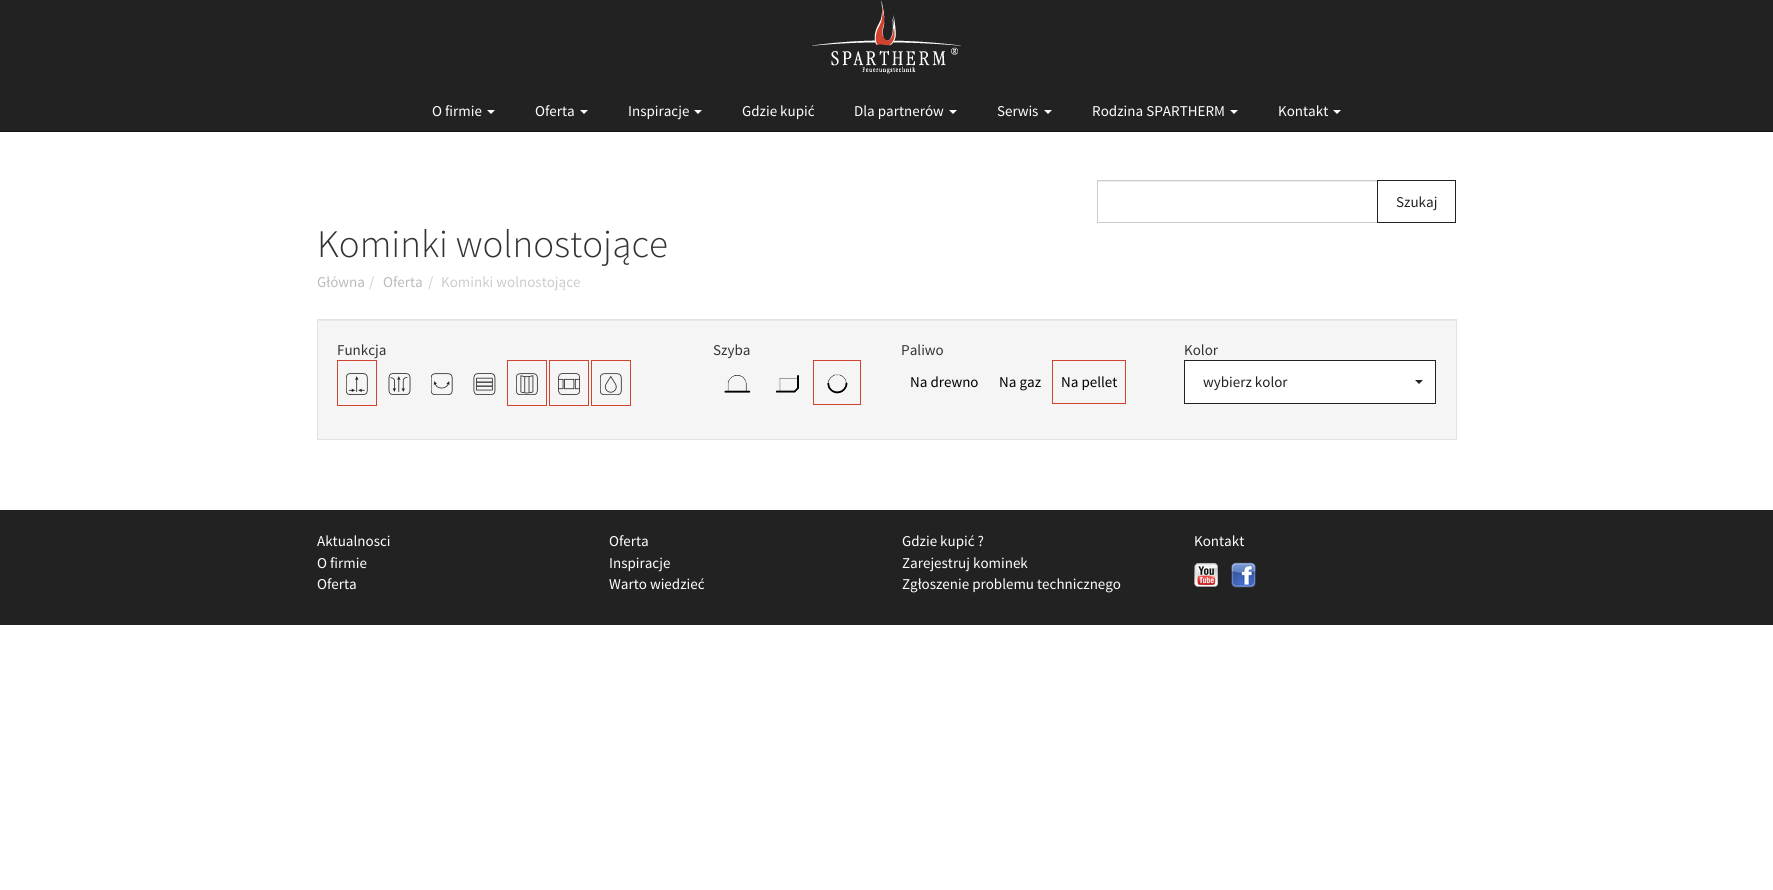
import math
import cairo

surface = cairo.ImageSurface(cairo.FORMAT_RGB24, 1773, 890)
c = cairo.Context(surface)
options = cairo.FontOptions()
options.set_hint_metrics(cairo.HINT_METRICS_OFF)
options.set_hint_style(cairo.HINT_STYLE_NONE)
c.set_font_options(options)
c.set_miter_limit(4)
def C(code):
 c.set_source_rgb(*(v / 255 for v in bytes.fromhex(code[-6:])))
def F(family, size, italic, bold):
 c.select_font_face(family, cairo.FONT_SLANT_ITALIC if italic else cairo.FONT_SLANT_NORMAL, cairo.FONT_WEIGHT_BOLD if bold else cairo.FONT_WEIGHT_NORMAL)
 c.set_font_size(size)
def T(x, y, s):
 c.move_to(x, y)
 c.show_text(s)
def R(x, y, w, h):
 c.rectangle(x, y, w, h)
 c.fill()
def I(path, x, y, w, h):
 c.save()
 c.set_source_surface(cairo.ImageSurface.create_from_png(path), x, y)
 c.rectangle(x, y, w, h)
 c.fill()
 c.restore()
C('ffffff')
c.paint()
C('222222')
R(0,0,1773,131)
C('121212')
R(0,131,1773,1)
I('1.png',812,0,149,74)
F('Source Sans Pro',15,0,0)
C('ffffff')
T(432,116,'O firmie')
c.new_path()
c.move_to(487,110)
c.line_to(495,110)
c.line_to(491,114)
c.close_path()
c.fill()
T(535,116,'Oferta')
c.new_path()
c.move_to(580,110)
c.line_to(588,110)
c.line_to(584,114)
c.close_path()
c.fill()
T(628,116,'Inspiracje')
c.new_path()
c.move_to(694,110)
c.line_to(702,110)
c.line_to(698,114)
c.close_path()
c.fill()
T(742,116,'Gdzie kupić')
T(854,116,'Dla partnerów')
c.new_path()
c.move_to(949,110)
c.line_to(957,110)
c.line_to(953,114)
c.close_path()
c.fill()
T(997,116,'Serwis')
c.new_path()
c.move_to(1044,110)
c.line_to(1052,110)
c.line_to(1048,114)
c.close_path()
c.fill()
T(1092,116,'Rodzina SPARTHERM')
c.new_path()
c.move_to(1230,110)
c.line_to(1238,110)
c.line_to(1234,114)
c.close_path()
c.fill()
T(1278,116,'Kontakt')
c.new_path()
c.move_to(1333,110)
c.line_to(1341,110)
c.line_to(1337,114)
c.close_path()
c.fill()
C('ececec')
R(1098,181,279,1)
c.rectangle(1097.5,180.5,280,42)
C('cccccc')
c.set_line_width(1)
c.stroke()
c.rectangle(1377.5,180.5,78,42)
C('222222')
c.stroke()
T(1396,207,'Szukaj')
F('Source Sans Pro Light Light',39,0,0)
C('333333')
T(317,257,'Kominki wolnostojące')
F('Source Sans Pro',15,0,0)
C('bbbbbb')
T(317,287,'Główna')
C('cccccc')
T(369,287,'/')
C('bbbbbb')
T(383,287,'Oferta')
C('cccccc')
T(428,287,'/')
T(441,287,'Kominki wolnostojące')
C('f5f5f5')
R(318,321,1138,118)
C('e9e9e9')
R(318,320,1138,1)
c.rectangle(317.5,319.5,1139,120)
C('e3e3e3')
c.stroke()
C('333333')
T(337,355,'Funkcja')
c.rectangle(337.5,360.5,39,45)
C('d0432f')
c.stroke()
I('2.png',346,373,22,22)
I('3.png',388,373,23,22)
I('4.png',431,373,22,22)
I('5.png',473,373,23,22)
c.rectangle(507.5,360.5,39,45)
c.stroke()
I('6.png',516,373,22,22)
c.rectangle(549.5,360.5,39,45)
c.stroke()
I('7.png',558,373,22,22)
c.rectangle(591.5,360.5,39,45)
c.stroke()
I('8.png',600,373,22,22)
C('333333')
T(713,355,'Szyba')
I('9.png',724,375,27,18)
I('10.png',776,375,23,18)
c.rectangle(813.5,360.5,47,44)
C('d0432f')
c.stroke()
I('11.png',827,374,21,20)
C('333333')
T(901,355,'Paliwo')
C('000000')
T(910,387,'Na drewno')
T(999,387,'Na gaz')
c.rectangle(1052.5,360.5,73,43)
C('d0432f')
c.stroke()
C('000000')
T(1061,387,'Na pellet')
C('333333')
T(1184,355,'Kolor')
C('ffffff')
c.rectangle(1184.5,360.5,251,43)
c.fill_preserve()
C('222222')
c.stroke()
T(1203,387,'wybierz kolor')
c.new_path()
c.move_to(1415,380)
c.line_to(1423,380)
c.line_to(1419,384)
c.close_path()
c.fill()
R(0,510,1773,115)
C('ffffff')
T(317,546,'Aktualnosci')
T(317,568,'O firmie')
T(317,589,'Oferta')
T(609,546,'Oferta')
T(609,568,'Inspiracje')
T(609,589,'Warto wiedzieć')
T(902,546,'Gdzie kupić ?')
T(902,568,'Zarejestruj kominek')
T(902,589,'Zgłoszenie problemu technicznego')
T(1194,546,'Kontakt')
I('12.png',1194,563,24,25)
I('13.png',1231,562,25,26)
surface.write_to_png('o.png')
